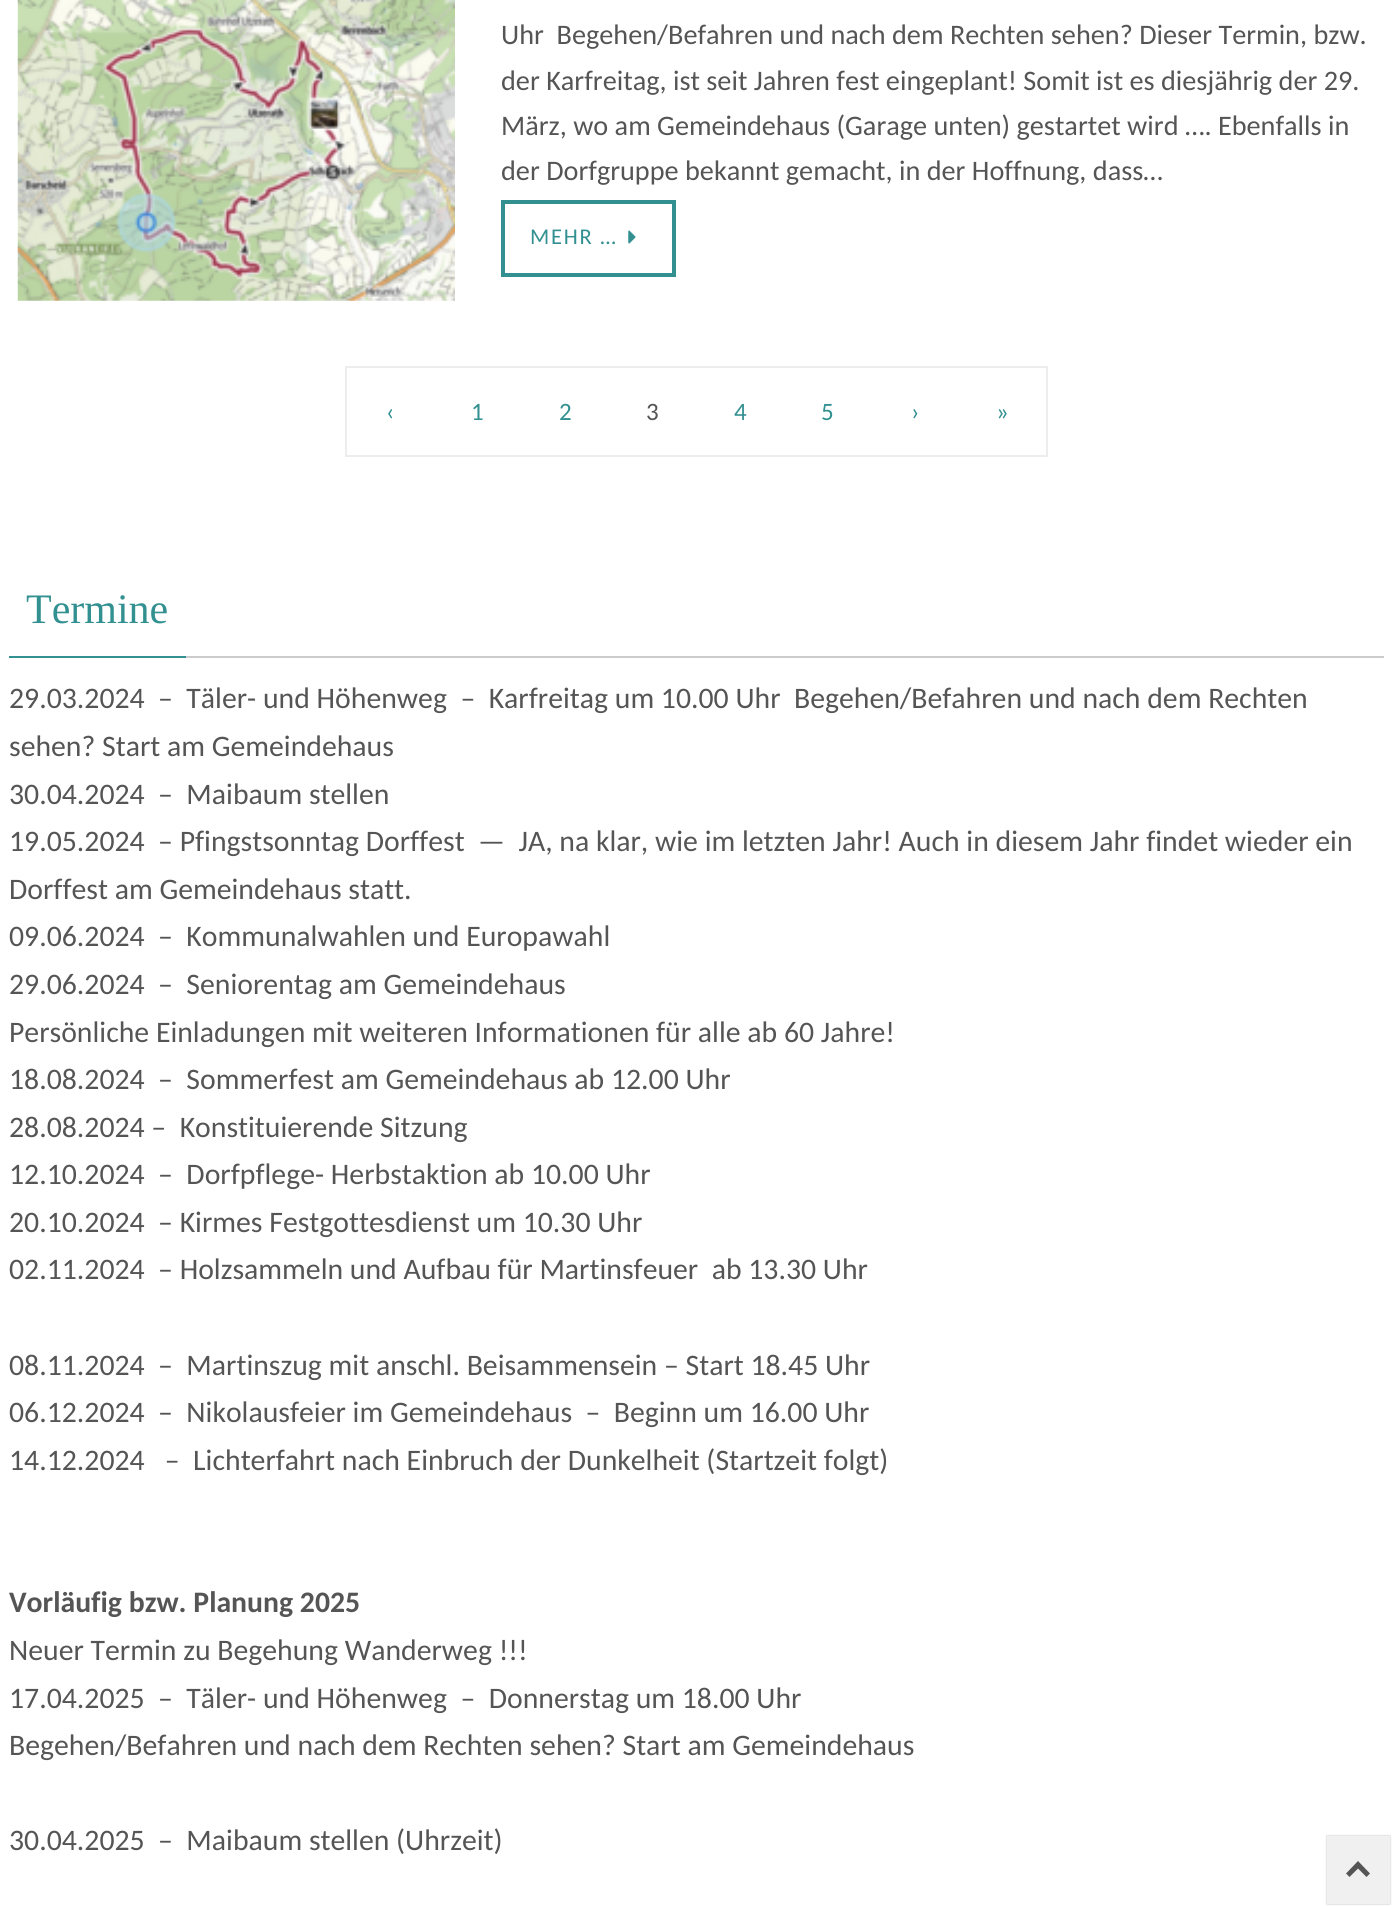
import math
import cairo

surface = cairo.ImageSurface(cairo.FORMAT_RGB24, 1393, 1906)
c = cairo.Context(surface)
options = cairo.FontOptions()
options.set_hint_metrics(cairo.HINT_METRICS_OFF)
options.set_hint_style(cairo.HINT_STYLE_NONE)
c.set_font_options(options)
c.set_miter_limit(4)
def C(code):
 c.set_source_rgb(*(v / 255 for v in bytes.fromhex(code[-6:])))
def F(family, size, italic, bold):
 c.select_font_face(family, cairo.FONT_SLANT_ITALIC if italic else cairo.FONT_SLANT_NORMAL, cairo.FONT_WEIGHT_BOLD if bold else cairo.FONT_WEIGHT_NORMAL)
 c.set_font_size(size)
def T(x, y, s):
 c.move_to(x, y)
 c.show_text(s)
def L(x, y, s, letter, word):
 c.move_to(x, y)
 for ch in s:
  c.show_text(ch)
  c.rel_move_to(letter + word * (ch == ' '), 0)
def R(x, y, w, h):
 c.rectangle(x, y, w, h)
 c.fill()
def Q(x, y, w, h, r):
 c.new_sub_path()
 for i, (u, v) in enumerate([(x + w - r, y + h - r), (x + r, y + h - r), (x + r, y + r), (x + w - r, y + r)]):
  c.arc(u, v, r, i * math.pi / 2, (i + 1) * math.pi / 2)
 c.close_path()
def S(x, y, w, h, r, blur, alpha):
 c.push_group_with_content(cairo.CONTENT_ALPHA)
 c.set_operator(cairo.OPERATOR_SOURCE)
 for i in range(15, -16, -2):
  e = blur * i / 6
  if min(w, h) + 2 * e > 0:
   c.set_source_rgba(0, 0, 0, alpha * math.erfc((i - 1) / 8.5) / 2)
   Q(x - e, y - e, w + 2 * e, h + 2 * e, max(0, min(r + e + blur * .6, min(w, h) / 2 + e)))
   c.fill()
 c.mask(c.pop_group())
def I(path, x, y, w, h):
 c.save()
 c.set_source_surface(cairo.ImageSurface.create_from_png(path), x, y)
 c.rectangle(x, y, w, h)
 c.fill()
 c.restore()
C('ffffff')
c.paint()
I('1.png',17,0,438,301)
F('Carlito',28.25,0,0)
C('555555')
T(501,44,'Uhr  Begehen/Befahren und nach dem Rechten sehen? Dieser Termin, bzw.')
T(501,90,'der Karfreitag, ist seit Jahren fest eingeplant! Somit ist es diesjährig der 29.')
T(501,135,'März, wo am Gemeindehaus (Garage unten) gestartet wird …. Ebenfalls in')
T(501,180,'der Dorfgruppe bekannt gemacht, in der Hoffnung, dass…')
c.rectangle(503,202,171,73)
C('339091')
c.set_line_width(4)
c.stroke()
F('Carlito',22.5,0,0)
L(530,244,'MEHR …',1.75,0)
I('2.png',628,230,8,14)
c.rectangle(346,367,701,89)
C('ededed')
c.set_line_width(2)
c.stroke()
F('Carlito',25,0,0)
C('339091')
T(386,420,'‹')
T(471,420,'1')
T(559,420,'2')
C('555555')
T(646,420,'3')
C('339091')
T(734,420,'4')
T(821,420,'5')
T(911,420,'›')
T(996,420,'»')
C('cccccc')
R(186,656,1198,2)
C('339091')
R(9,656,177,2)
F('Liberation Serif',42,0,0)
T(26,623,'Termine')
F('Carlito',29.75,0,0)
C('555555')
T(9,708,'29.03.2024  –  Täler- und Höhenweg  –  Karfreitag um 10.00 Uhr  Begehen/Befahren und nach dem Rechten')
T(9,756,'sehen? Start am Gemeindehaus')
T(9,804,'30.04.2024  –  Maibaum stellen')
T(9,851,'19.05.2024  – Pfingstsonntag Dorffest  —  JA, na klar, wie im letzten Jahr! Auch in diesem Jahr findet wieder ein')
T(9,899,'Dorffest am Gemeindehaus statt.')
T(9,946,'09.06.2024  –  Kommunalwahlen und Europawahl')
T(9,994,'29.06.2024  –  Seniorentag am Gemeindehaus')
T(9,1042,'Persönliche Einladungen mit weiteren Informationen für alle ab 60 Jahre!')
T(9,1089,'18.08.2024  –  Sommerfest am Gemeindehaus ab 12.00 Uhr')
T(9,1137,'28.08.2024 –  Konstituierende Sitzung')
T(9,1184,'12.10.2024  –  Dorfpflege- Herbstaktion ab 10.00 Uhr')
T(9,1232,'20.10.2024  – Kirmes Festgottesdienst um 10.30 Uhr')
T(9,1279,'02.11.2024  – Holzsammeln und Aufbau für Martinsfeuer  ab 13.30 Uhr')
T(9,1375,'08.11.2024  –  Martinszug mit anschl. Beisammensein – Start 18.45 Uhr')
T(9,1422,'06.12.2024  –  Nikolausfeier im Gemeindehaus  –  Beginn um 16.00 Uhr')
T(9,1470,'14.12.2024   –  Lichterfahrt nach Einbruch der Dunkelheit (Startzeit folgt)')
F('Carlito',29.75,0,1)
T(9,1612,'Vorläufig bzw. Planung 2025')
F('Carlito',29.75,0,0)
T(9,1660,'Neuer Termin zu Begehung Wanderweg !!!')
T(9,1708,'17.04.2025  –  Täler- und Höhenweg  –  Donnerstag um 18.00 Uhr')
T(9,1755,'Begehen/Befahren und nach dem Rechten sehen? Start am Gemeindehaus')
T(9,1850,'30.04.2025  –  Maibaum stellen (Uhrzeit)')
c.save()
c.set_fill_rule(cairo.FILL_RULE_EVEN_ODD)
c.new_path()
c.move_to(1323,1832)
c.line_to(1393,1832)
c.line_to(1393,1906)
c.line_to(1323,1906)
c.close_path()
c.move_to(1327,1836)
c.line_to(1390,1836)
c.line_to(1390,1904)
c.line_to(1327,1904)
c.close_path()
c.clip()
C('000000')
S(1327,1836,63,68,0,1,.28)
c.restore()
c.set_source_rgba(0,0,0,0.06)
R(1327,1836,63,68)
c.rectangle(1328,1837,61,66)
c.set_source_rgba(1,1,1,0.1)
c.stroke()
C('555555')
c.new_path()
c.move_to(1346,1873.5)
c.line_to(1358,1861)
c.line_to(1370,1873.5)
c.line_to(1366.5,1877)
c.line_to(1358,1868.5)
c.line_to(1349.5,1877)
c.close_path()
c.fill()
surface.write_to_png('o.png')
